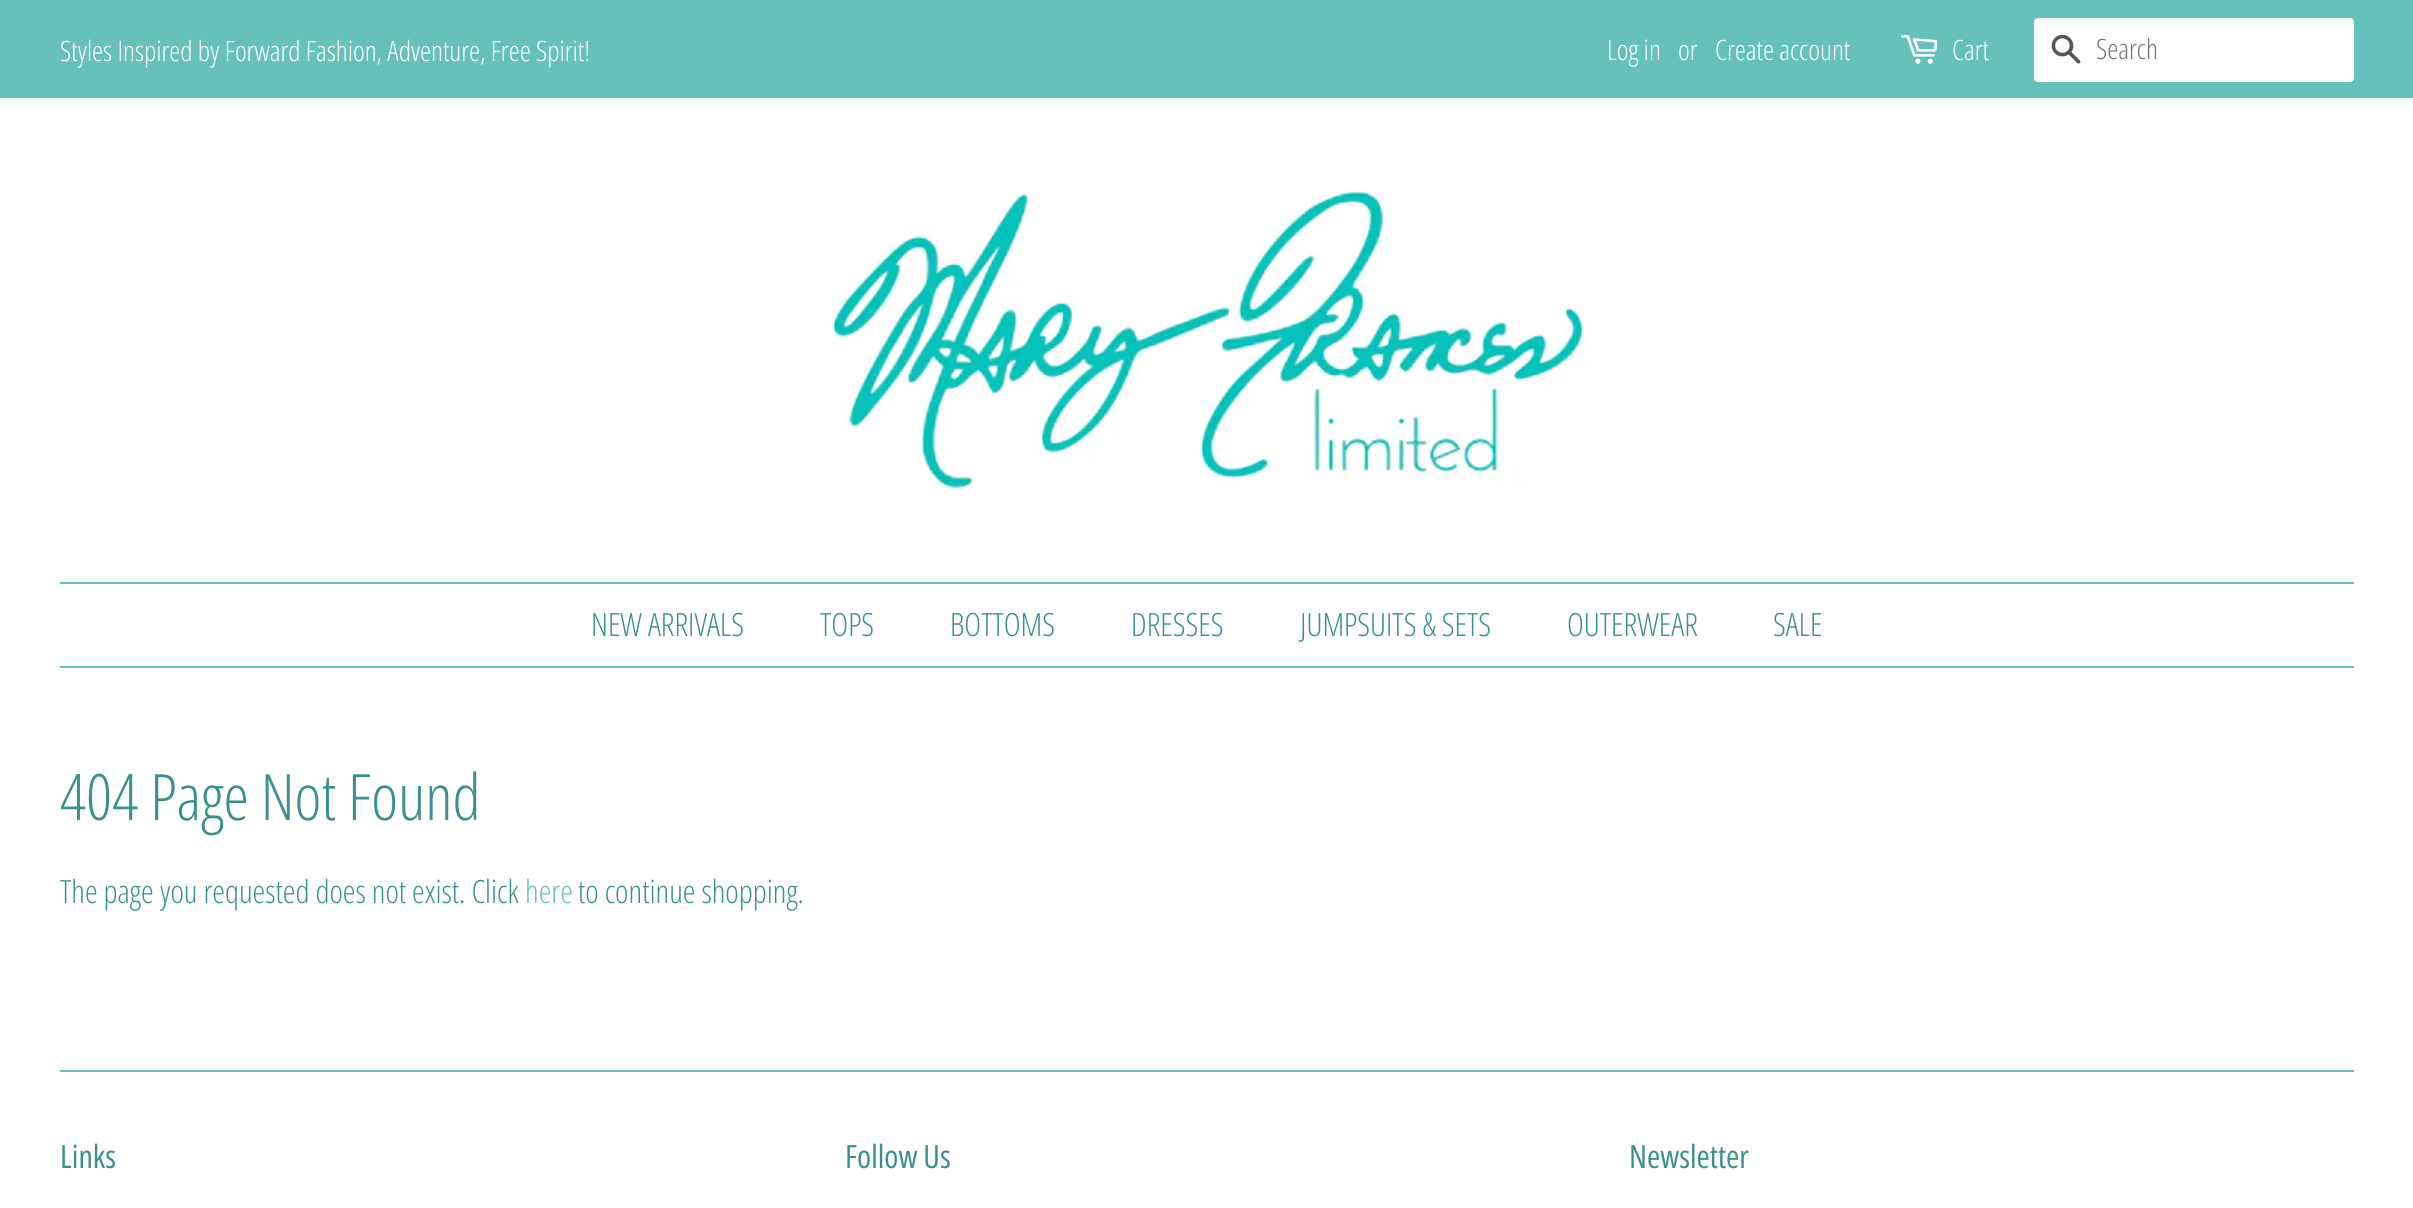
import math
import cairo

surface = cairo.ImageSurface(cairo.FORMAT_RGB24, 2413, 1208)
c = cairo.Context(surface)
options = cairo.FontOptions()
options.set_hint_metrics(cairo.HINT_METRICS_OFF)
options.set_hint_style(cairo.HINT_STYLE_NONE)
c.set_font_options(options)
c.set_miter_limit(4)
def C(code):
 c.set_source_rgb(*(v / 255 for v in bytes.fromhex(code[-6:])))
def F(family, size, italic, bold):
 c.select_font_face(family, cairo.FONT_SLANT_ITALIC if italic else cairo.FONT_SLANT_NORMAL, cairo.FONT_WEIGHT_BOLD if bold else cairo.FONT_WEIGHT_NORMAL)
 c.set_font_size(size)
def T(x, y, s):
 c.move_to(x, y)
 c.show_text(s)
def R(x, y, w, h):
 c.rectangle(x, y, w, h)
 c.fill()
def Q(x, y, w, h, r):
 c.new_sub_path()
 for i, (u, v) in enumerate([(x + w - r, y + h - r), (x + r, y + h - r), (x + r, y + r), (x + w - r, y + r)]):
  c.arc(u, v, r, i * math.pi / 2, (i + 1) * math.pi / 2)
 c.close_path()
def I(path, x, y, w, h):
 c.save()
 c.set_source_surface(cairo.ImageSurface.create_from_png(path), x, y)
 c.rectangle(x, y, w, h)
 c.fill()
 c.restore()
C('ffffff')
c.paint()
C('66c1bd')
R(0,0,2413,98)
F('Open Sans Condensed Light',28,0,0)
C('ffffff')
T(60,61,'Styles Inspired by Forward Fashion, Adventure, Free Spirit!')
T(1607,60,'Log in')
T(1678,60,'or')
T(1715,60,'Create account')
I('1.png',1900,35,38,29)
T(1952,60,'Cart')
Q(2034,18,320,64,4)
c.fill()
I('2.png',2051,34,30,30)
C('757575')
T(2096,59,'Search')
I('3.png',831,189,758,302)
C('66c1bd')
R(60,582,2294,2)
R(60,666,2294,2)
F('Open Sans Condensed Light',32,0,0)
C('39918d')
T(591,636,'NEW ARRIVALS')
T(820,636,'TOPS')
T(950,636,'BOTTOMS')
T(1131,636,'DRESSES')
T(1300,636,'JUMPSUITS & SETS')
T(1567,636,'OUTERWEAR')
T(1773,636,'SALE')
F('Open Sans Condensed Light',64,0,0)
T(60,820,'404 Page Not Found')
F('Open Sans Condensed Light',32,0,0)
T(60,903,'The page you requested does not exist. Click')
C('66c1bd')
T(525,903,'here')
C('39918d')
T(578,903,'to continue shopping.')
C('66c1bd')
R(60,1070,2294,2)
F('Open Sans Condensed',32,0,0)
C('39918d')
T(60,1168,'Links')
T(845,1168,'Follow Us')
T(1629,1168,'Newsletter')
surface.write_to_png('o.png')
